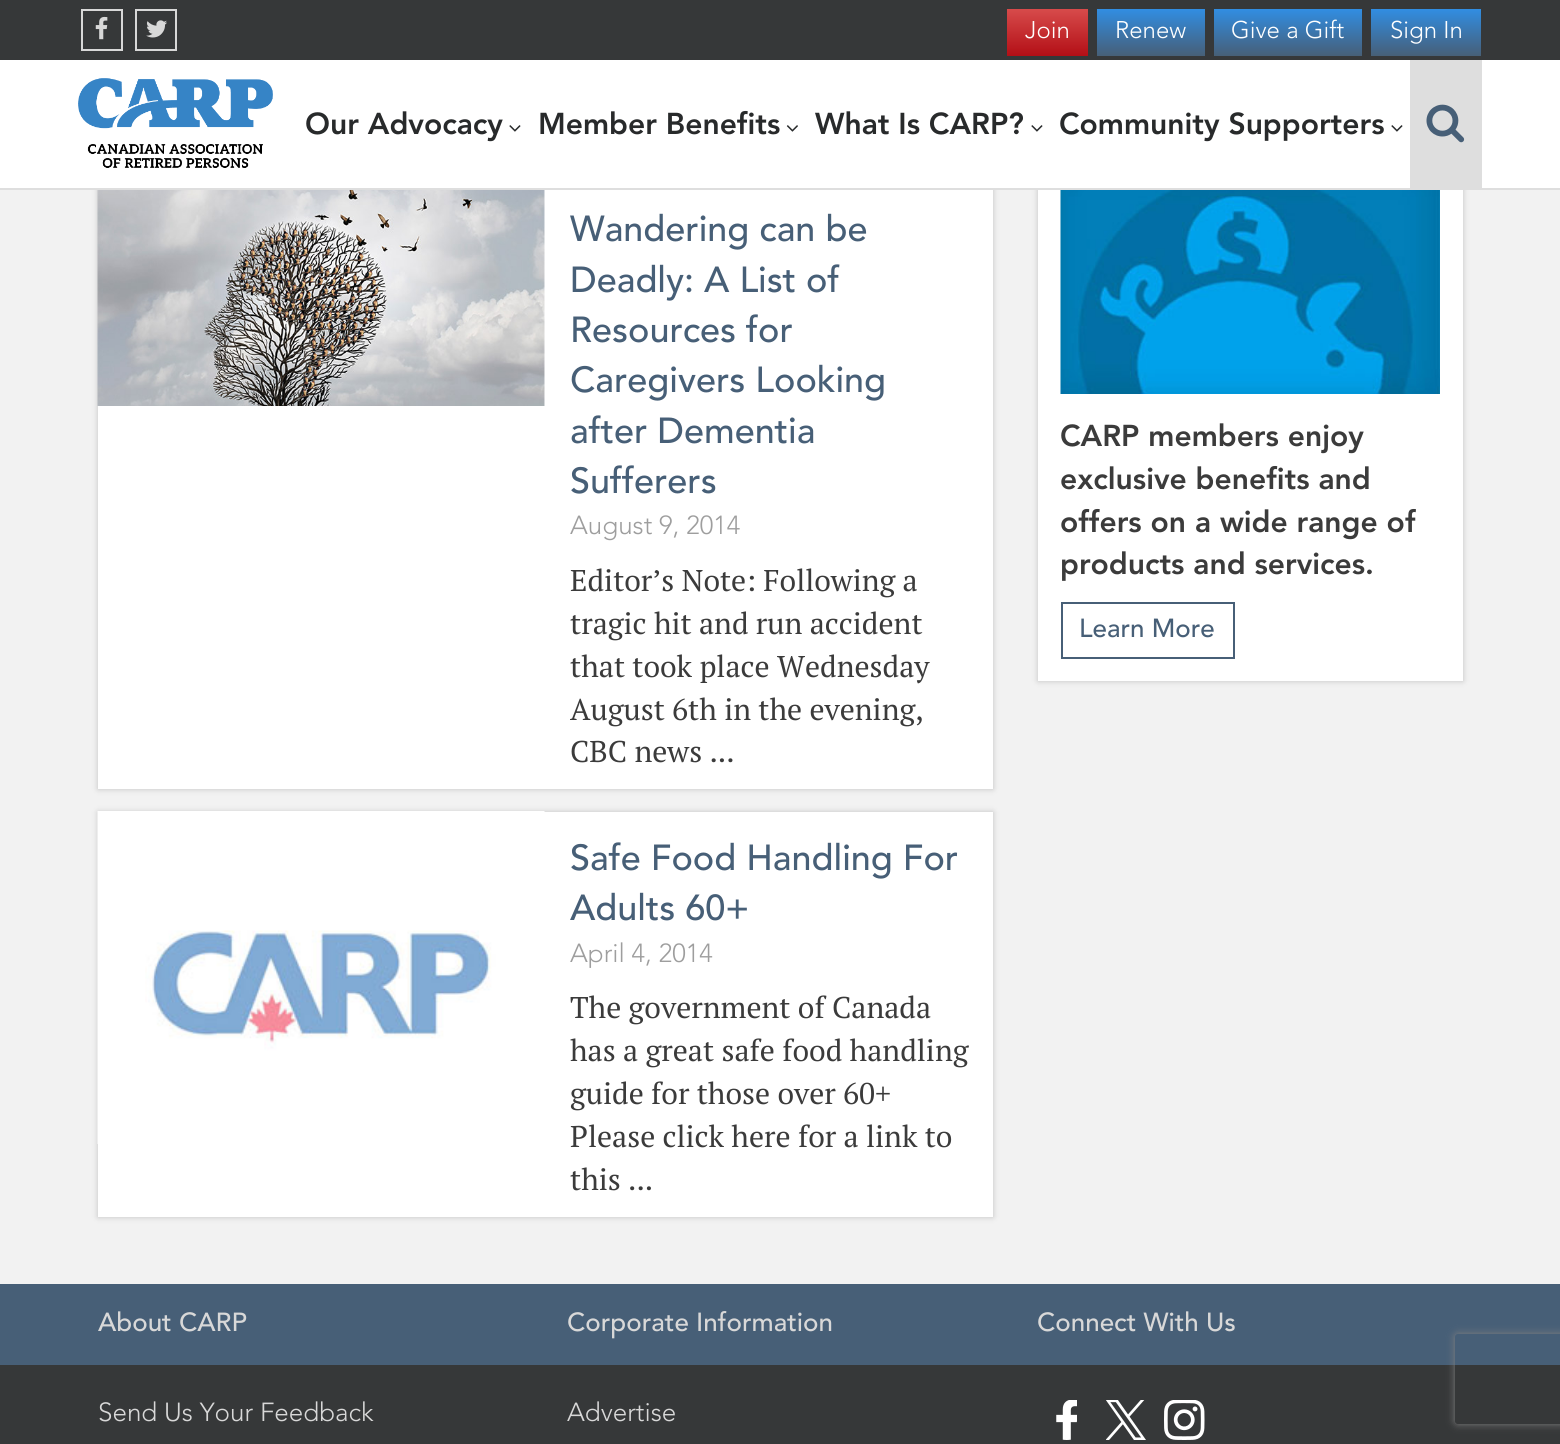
import math
import cairo

surface = cairo.ImageSurface(cairo.FORMAT_RGB24, 1560, 1444)
c = cairo.Context(surface)
options = cairo.FontOptions()
options.set_hint_metrics(cairo.HINT_METRICS_OFF)
options.set_hint_style(cairo.HINT_STYLE_NONE)
c.set_font_options(options)
c.set_miter_limit(4)
def C(code):
 c.set_source_rgb(*(v / 255 for v in bytes.fromhex(code[-6:])))
def F(family, size, italic, bold):
 c.select_font_face(family, cairo.FONT_SLANT_ITALIC if italic else cairo.FONT_SLANT_NORMAL, cairo.FONT_WEIGHT_BOLD if bold else cairo.FONT_WEIGHT_NORMAL)
 c.set_font_size(size)
def T(x, y, s):
 c.move_to(x, y)
 c.show_text(s)
def R(x, y, w, h):
 c.rectangle(x, y, w, h)
 c.fill()
def Q(x, y, w, h, r):
 c.new_sub_path()
 for i, (u, v) in enumerate([(x + w - r, y + h - r), (x + r, y + h - r), (x + r, y + r), (x + w - r, y + r)]):
  c.arc(u, v, r, i * math.pi / 2, (i + 1) * math.pi / 2)
 c.close_path()
def S(x, y, w, h, r, blur, alpha):
 c.push_group_with_content(cairo.CONTENT_ALPHA)
 c.set_operator(cairo.OPERATOR_SOURCE)
 for i in range(15, -16, -2):
  e = blur * i / 6
  if min(w, h) + 2 * e > 0:
   c.set_source_rgba(0, 0, 0, alpha * math.erfc((i - 1) / 8.5) / 2)
   Q(x - e, y - e, w + 2 * e, h + 2 * e, max(0, min(r + e + blur * .6, min(w, h) / 2 + e)))
   c.fill()
 c.mask(c.pop_group())
def I(path, x, y, w, h):
 c.save()
 c.set_source_surface(cairo.ImageSurface.create_from_png(path), x, y)
 c.rectangle(x, y, w, h)
 c.fill()
 c.restore()
C('f2f2f2')
c.paint()
C('363839')
R(0,0,1560,60)
I('1.png',95,16,13,24)
c.rectangle(82,10,40,40)
C('d8d8d8')
c.stroke()
I('2.png',146,20,21,18)
c.rectangle(136,10,40,40)
c.stroke()
gradient = cairo.LinearGradient(1047,9,1047,56)
gradient.add_color_stop_rgba(0,0.843,0.294,0.294,1)
gradient.add_color_stop_rgba(1,0.702,0.059,0.086,1)
c.set_source(gradient)
R(1007,9,81,47)
F('Avenir Light',24,0,0)
C('ffffff')
T(1025,38,'Join')
gradient = cairo.LinearGradient(1151,9,1151,56)
gradient.add_color_stop_rgba(0,0.192,0.553,0.886,1)
gradient.add_color_stop_rgba(1,0.278,0.373,0.467,1)
c.set_source(gradient)
R(1097,9,108,47)
C('ffffff')
T(1115,38,'Renew')
gradient = cairo.LinearGradient(1288,9,1288,56)
gradient.add_color_stop_rgba(0,0.192,0.553,0.886,1)
gradient.add_color_stop_rgba(1,0.278,0.373,0.467,1)
c.set_source(gradient)
R(1214,9,148,47)
C('ffffff')
T(1231,38,'Give a Gift')
gradient = cairo.LinearGradient(1426,9,1426,56)
gradient.add_color_stop_rgba(0,0.192,0.553,0.886,1)
gradient.add_color_stop_rgba(1,0.278,0.373,0.467,1)
c.set_source(gradient)
R(1371,9,110,47)
C('ffffff')
T(1390,38,'Sign In')
C('c1c1c1')
S(98,183,895,606,0,3,1)
S(1038,140,425,541,0,3,1)
C('ffffff')
R(0,60,1560,128)
C('dedede')
R(0,188,1560,2)
I('3.png',78,78,195,90)
F('Avenir Black',30,0,0)
C('282a2b')
T(305,134,'Our Advocacy')
I('4.png',509,125,12,7)
T(538,134,'Member Benefits')
I('5.png',786,125,12,7)
T(815,134,'What Is CARP?')
I('4.png',1031,125,12,7)
T(1059,134,'Community Supporters')
I('4.png',1391,125,12,7)
C('dedede')
R(1410,60,72,128)
I('6.png',1426,104,39,39)
C('ffffff')
R(98,190,895,599)
I('7.png',97,190,448,216)
F('Avenir Medium',36,0,0)
C('475f77')
T(570,241,'Wandering can be')
T(570,292,'Deadly: A List of')
T(570,342,'Resources for')
T(570,392,'Caregivers Looking')
T(570,443,'after Dementia')
T(570,493,'Sufferers')
F('Avenir Light',26,0,0)
C('9e9e9e')
T(570,534,'August 9, 2014')
F('PT Serif',30,0,0)
C('3b3b3b')
T(570,591,'Editor’s Note: Following a')
T(570,634,'tragic hit and run accident')
T(570,677,'that took place Wednesday')
T(570,720,'August 6th in the evening,')
T(570,762,'CBC news ...')
C('c1c1c1')
S(98,812,895,405,0,3,1)
C('ffffff')
R(98,812,895,405)
I('8.png',97,811,448,333)
F('Avenir Medium',36,0,0)
C('475f77')
T(570,870,'Safe Food Handling For')
T(570,920,'Adults 60+')
F('Avenir Light',26,0,0)
C('9e9e9e')
T(570,962,'April 4, 2014')
F('PT Serif',30,0,0)
C('3b3b3b')
T(570,1018,'The government of Canada')
T(570,1061,'has a great safe food handling')
T(570,1104,'guide for those over 60+')
T(570,1147,'Please click here for a link to')
T(570,1190,'this ...')
C('ffffff')
R(1038,190,425,491)
I('9.png',1060,190,380,204)
F('Avenir Black',30,0,0)
C('3b3b3b')
T(1060,446,'CARP members enjoy')
T(1060,489,'exclusive benefits and')
T(1060,532,'offers on a wide range of')
T(1060,574,'products and services.')
c.rectangle(1062,603,172,55)
C('475f77')
c.stroke()
F('Avenir Medium',26,0,0)
T(1079,637,'Learn More')
R(0,1284,1560,81)
C('d8d8d8')
T(98,1331,'About CARP')
T(567,1331,'Corporate Information')
T(1037,1331,'Connect With Us')
C('363839')
R(0,1365,1560,79)
F('Avenir Light',26,0,0)
C('d8d8d8')
T(98,1421,'Send Us Your Feedback')
T(567,1421,'Advertise')
I('10.png',1056,1400,21,40)
I('11.png',1106,1400,40,40)
I('12.png',1164,1400,41,40)
c.save()
c.set_fill_rule(cairo.FILL_RULE_EVEN_ODD)
c.new_path()
c.move_to(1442,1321)
c.line_to(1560,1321)
c.line_to(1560,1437)
c.line_to(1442,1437)
c.close_path()
c.move_to(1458,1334)
c.line_to(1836,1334)
c.curve_to(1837.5,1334,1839,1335.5,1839,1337)
c.line_to(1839,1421)
c.curve_to(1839,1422.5,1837.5,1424,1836,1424)
c.line_to(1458,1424)
c.curve_to(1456.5,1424,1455,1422.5,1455,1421)
c.line_to(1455,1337)
c.curve_to(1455,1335.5,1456.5,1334,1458,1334)
c.close_path()
c.clip()
C('808080')
S(1455,1334,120,90,3,4,1)
c.restore()
surface.write_to_png('o.png')
